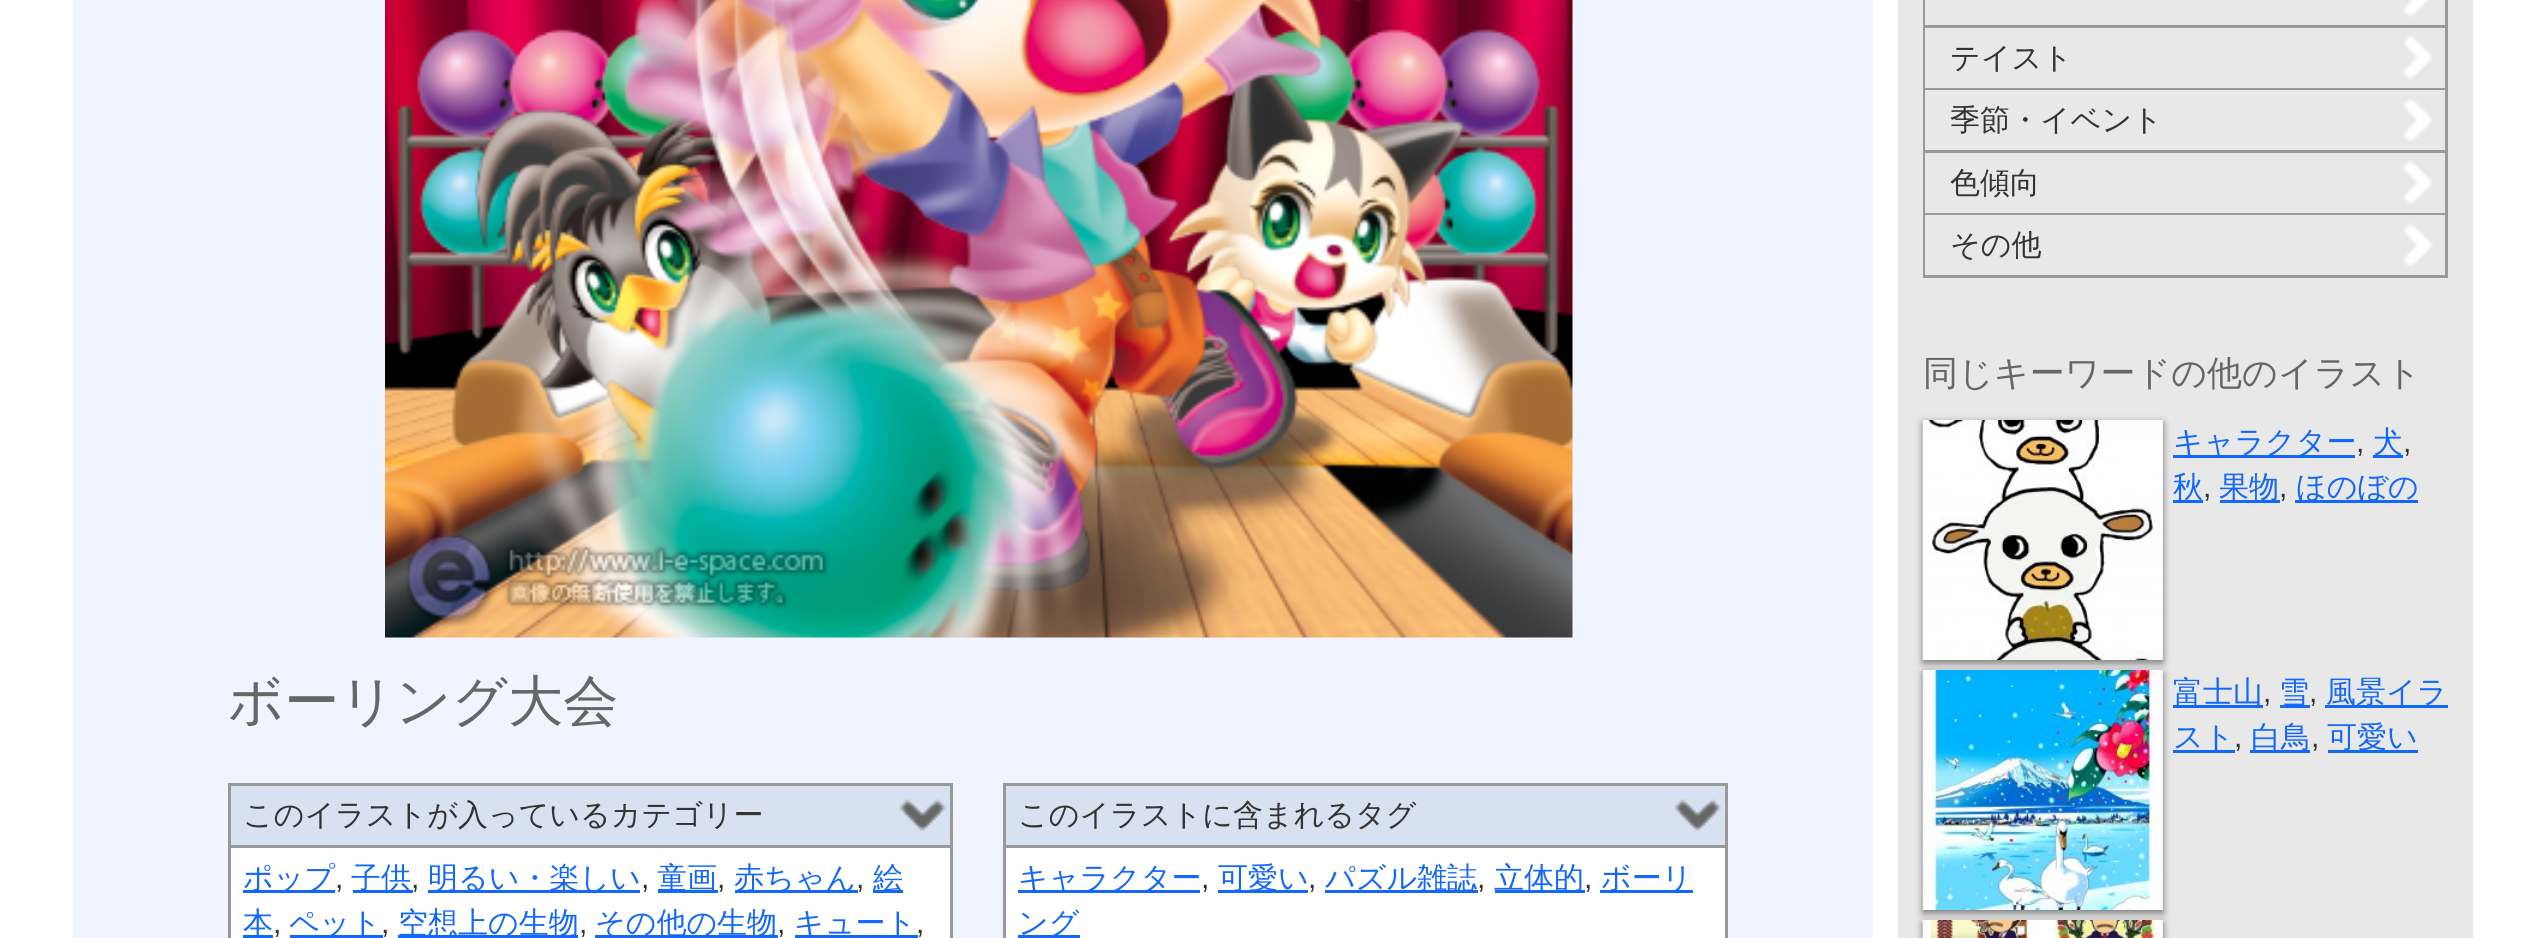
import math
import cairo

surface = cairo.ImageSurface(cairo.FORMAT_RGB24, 2543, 938)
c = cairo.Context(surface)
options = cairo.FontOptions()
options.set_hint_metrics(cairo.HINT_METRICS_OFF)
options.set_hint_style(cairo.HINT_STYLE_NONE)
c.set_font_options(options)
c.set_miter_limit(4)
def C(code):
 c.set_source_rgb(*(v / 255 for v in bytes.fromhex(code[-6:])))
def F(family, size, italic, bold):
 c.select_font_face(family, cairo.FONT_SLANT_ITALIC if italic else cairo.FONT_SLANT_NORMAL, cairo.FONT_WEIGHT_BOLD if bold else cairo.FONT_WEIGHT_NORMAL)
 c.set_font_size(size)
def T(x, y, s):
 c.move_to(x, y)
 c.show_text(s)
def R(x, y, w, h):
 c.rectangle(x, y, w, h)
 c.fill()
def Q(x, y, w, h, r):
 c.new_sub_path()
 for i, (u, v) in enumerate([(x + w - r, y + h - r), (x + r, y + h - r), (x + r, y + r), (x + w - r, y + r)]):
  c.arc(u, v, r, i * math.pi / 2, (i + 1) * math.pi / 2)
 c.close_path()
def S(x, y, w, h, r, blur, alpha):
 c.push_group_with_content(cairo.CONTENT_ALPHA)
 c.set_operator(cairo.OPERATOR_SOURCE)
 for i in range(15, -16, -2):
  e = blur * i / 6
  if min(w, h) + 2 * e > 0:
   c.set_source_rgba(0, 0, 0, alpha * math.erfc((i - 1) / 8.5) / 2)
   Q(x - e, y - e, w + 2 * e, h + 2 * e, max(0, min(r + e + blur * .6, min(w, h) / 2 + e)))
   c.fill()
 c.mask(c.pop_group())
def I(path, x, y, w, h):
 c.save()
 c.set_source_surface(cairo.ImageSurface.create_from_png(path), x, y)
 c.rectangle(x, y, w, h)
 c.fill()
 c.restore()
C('ffffff')
c.paint()
C('e8e8e8')
R(1898,0,575,938)
c.rectangle(1924.5,-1.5,522,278)
C('999999')
c.set_line_width(3)
c.stroke()
R(1925,25,520,3)
C('e8e8e8')
R(1925,0,1,25)
I('1.png',2403,0,26,17)
C('999999')
R(1925,88,520,2)
C('e8e8e8')
R(1925,28,1,60)
I('2.png',2403,35,30,45)
F('WenQuanYi Zen Hei Medium',30,0,0)
C('333333')
T(1950,68,'テイスト')
C('999999')
R(1925,150,520,3)
C('e8e8e8')
R(1925,90,1,60)
I('3.png',2403,98,30,44)
C('333333')
T(1950,130,'季節・イベント')
C('999999')
R(1925,213,520,2)
C('e8e8e8')
R(1925,153,1,60)
I('2.png',2403,160,30,45)
C('333333')
T(1950,193,'色傾向')
C('e8e8e8')
R(1925,215,1,60)
I('3.png',2403,223,30,44)
C('333333')
T(1950,255,'その他')
F('WenQuanYi Zen Hei Medium',35,0,0)
C('666666')
T(1923,385,'同じキーワードの他のイラスト')
C('1368f9')
R(2173,455,182,3)
R(2173,500,30,3)
C('000000')
S(1923,423,240,240,0,4,.5)
C('f0f4ff')
R(2162,420,1,240)
I('4.png',1922,420,240,240)
F('WenQuanYi Zen Hei Medium',30,0,0)
C('1368f9')
T(2173,452,'キャラクター')
F('Liberation Sans',30,0,0)
C('333333')
T(2356,452,',')
C('1368f9')
R(2373,455,30,3)
F('WenQuanYi Zen Hei Medium',30,0,0)
T(2373,452,'犬')
F('Liberation Sans',30,0,0)
C('333333')
T(2403,452,',')
F('WenQuanYi Zen Hei Medium',30,0,0)
C('1368f9')
T(2173,497,'秋')
F('Liberation Sans',30,0,0)
C('333333')
T(2203,497,',')
C('1368f9')
R(2220,500,60,3)
F('WenQuanYi Zen Hei Medium',30,0,0)
T(2219,497,'果物')
F('Liberation Sans',30,0,0)
C('333333')
T(2279,497,',')
C('1368f9')
R(2295,500,123,3)
F('WenQuanYi Zen Hei Medium',30,0,0)
T(2296,497,'ほのぼの')
R(2173,705,90,3)
R(2173,750,62,3)
C('000000')
S(1923,673,240,240,0,4,.5)
C('f0f4ff')
R(2162,670,1,240)
I('5.png',1922,670,240,240)
C('1368f9')
T(2173,702,'富士山')
F('Liberation Sans',30,0,0)
C('333333')
T(2263,702,',')
C('1368f9')
R(2280,705,30,3)
F('WenQuanYi Zen Hei Medium',30,0,0)
T(2279,702,'雪')
F('Liberation Sans',30,0,0)
C('333333')
T(2309,702,',')
C('1368f9')
R(2325,705,123,3)
F('WenQuanYi Zen Hei Medium',30,0,0)
T(2326,702,'風景イラ')
T(2173,747,'スト')
F('Liberation Sans',30,0,0)
C('333333')
T(2234,747,',')
C('1368f9')
R(2250,750,60,3)
F('WenQuanYi Zen Hei Medium',30,0,0)
T(2251,747,'白鳥')
F('Liberation Sans',30,0,0)
C('333333')
T(2311,747,',')
C('1368f9')
R(2328,750,90,3)
F('WenQuanYi Zen Hei Medium',30,0,0)
T(2327,747,'可愛い')
C('000000')
S(1923,923,240,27,0,4,.5)
C('f0f4ff')
R(2162,920,1,18)
I('6.png',1922,920,240,18)
R(73,0,1800,938)
I('7.png',385,0,1188,638)
F('WenQuanYi Zen Hei Medium',55,0,0)
C('666666')
T(228,720,'ボーリング大会')
C('d8e1f0')
R(231,786,719,59)
I('8.png',900,799,46,32)
c.rectangle(229.5,784.5,722,62)
C('999999')
c.stroke()
F('WenQuanYi Zen Hei Medium',30,0,0)
C('333333')
T(243,825,'このイラストが入っているカテゴリー')
C('ffffff')
R(231,848,719,90)
C('999999')
R(950,848,3,90)
R(228,848,3,90)
C('1368f9')
R(243,890,92,3)
T(243,888,'ポップ')
F('Liberation Sans',30,0,0)
C('333333')
T(335,888,',')
C('1368f9')
R(353,890,60,3)
F('WenQuanYi Zen Hei Medium',30,0,0)
T(351,888,'子供')
F('Liberation Sans',30,0,0)
C('333333')
T(411,888,',')
C('1368f9')
R(428,890,212,3)
F('WenQuanYi Zen Hei Medium',30,0,0)
T(428,888,'明るい・楽しい')
F('Liberation Sans',30,0,0)
C('333333')
T(641,888,',')
C('1368f9')
R(658,890,60,3)
F('WenQuanYi Zen Hei Medium',30,0,0)
T(657,888,'童画')
F('Liberation Sans',30,0,0)
C('333333')
T(717,888,',')
C('1368f9')
R(735,890,123,3)
F('WenQuanYi Zen Hei Medium',30,0,0)
T(734,888,'赤ちゃん')
F('Liberation Sans',30,0,0)
C('333333')
T(856,888,',')
C('1368f9')
R(873,890,30,3)
F('WenQuanYi Zen Hei Medium',30,0,0)
T(873,888,'絵')
R(243,935,30,3)
T(243,933,'本')
F('Liberation Sans',30,0,0)
C('333333')
T(273,933,',')
C('1368f9')
R(290,935,93,3)
F('WenQuanYi Zen Hei Medium',30,0,0)
T(289,933,'ペット')
F('Liberation Sans',30,0,0)
C('333333')
T(381,933,',')
C('1368f9')
R(398,935,180,3)
F('WenQuanYi Zen Hei Medium',30,0,0)
T(398,933,'空想上の生物')
F('Liberation Sans',30,0,0)
C('333333')
T(579,933,',')
C('1368f9')
R(595,935,183,3)
F('WenQuanYi Zen Hei Medium',30,0,0)
T(595,933,'その他の生物')
F('Liberation Sans',30,0,0)
C('333333')
T(777,933,',')
C('1368f9')
R(795,935,123,3)
F('WenQuanYi Zen Hei Medium',30,0,0)
T(794,933,'キュート')
F('Liberation Sans',30,0,0)
C('333333')
T(916,933,',')
C('d8e1f0')
R(1006,786,719,59)
I('8.png',1675,799,46,32)
c.rectangle(1004.5,784.5,722,62)
C('999999')
c.stroke()
F('WenQuanYi Zen Hei Medium',30,0,0)
C('333333')
T(1018,825,'このイラストに含まれるタグ')
C('ffffff')
R(1006,848,719,90)
C('999999')
R(1725,848,3,90)
R(1003,848,3,90)
C('1368f9')
R(1018,890,182,3)
T(1018,888,'キャラクター')
F('Liberation Sans',30,0,0)
C('333333')
T(1201,888,',')
C('1368f9')
R(1218,890,90,3)
F('WenQuanYi Zen Hei Medium',30,0,0)
T(1218,888,'可愛い')
F('Liberation Sans',30,0,0)
C('333333')
T(1308,888,',')
C('1368f9')
R(1325,890,153,3)
F('WenQuanYi Zen Hei Medium',30,0,0)
T(1325,888,'パズル雑誌')
F('Liberation Sans',30,0,0)
C('333333')
T(1477,888,',')
C('1368f9')
R(1495,890,90,3)
F('WenQuanYi Zen Hei Medium',30,0,0)
T(1494,888,'立体的')
F('Liberation Sans',30,0,0)
C('333333')
T(1584,888,',')
C('1368f9')
R(1600,890,93,3)
F('WenQuanYi Zen Hei Medium',30,0,0)
T(1601,888,'ボーリ')
R(1018,935,62,3)
T(1018,933,'ング')
surface.write_to_png('o.png')
